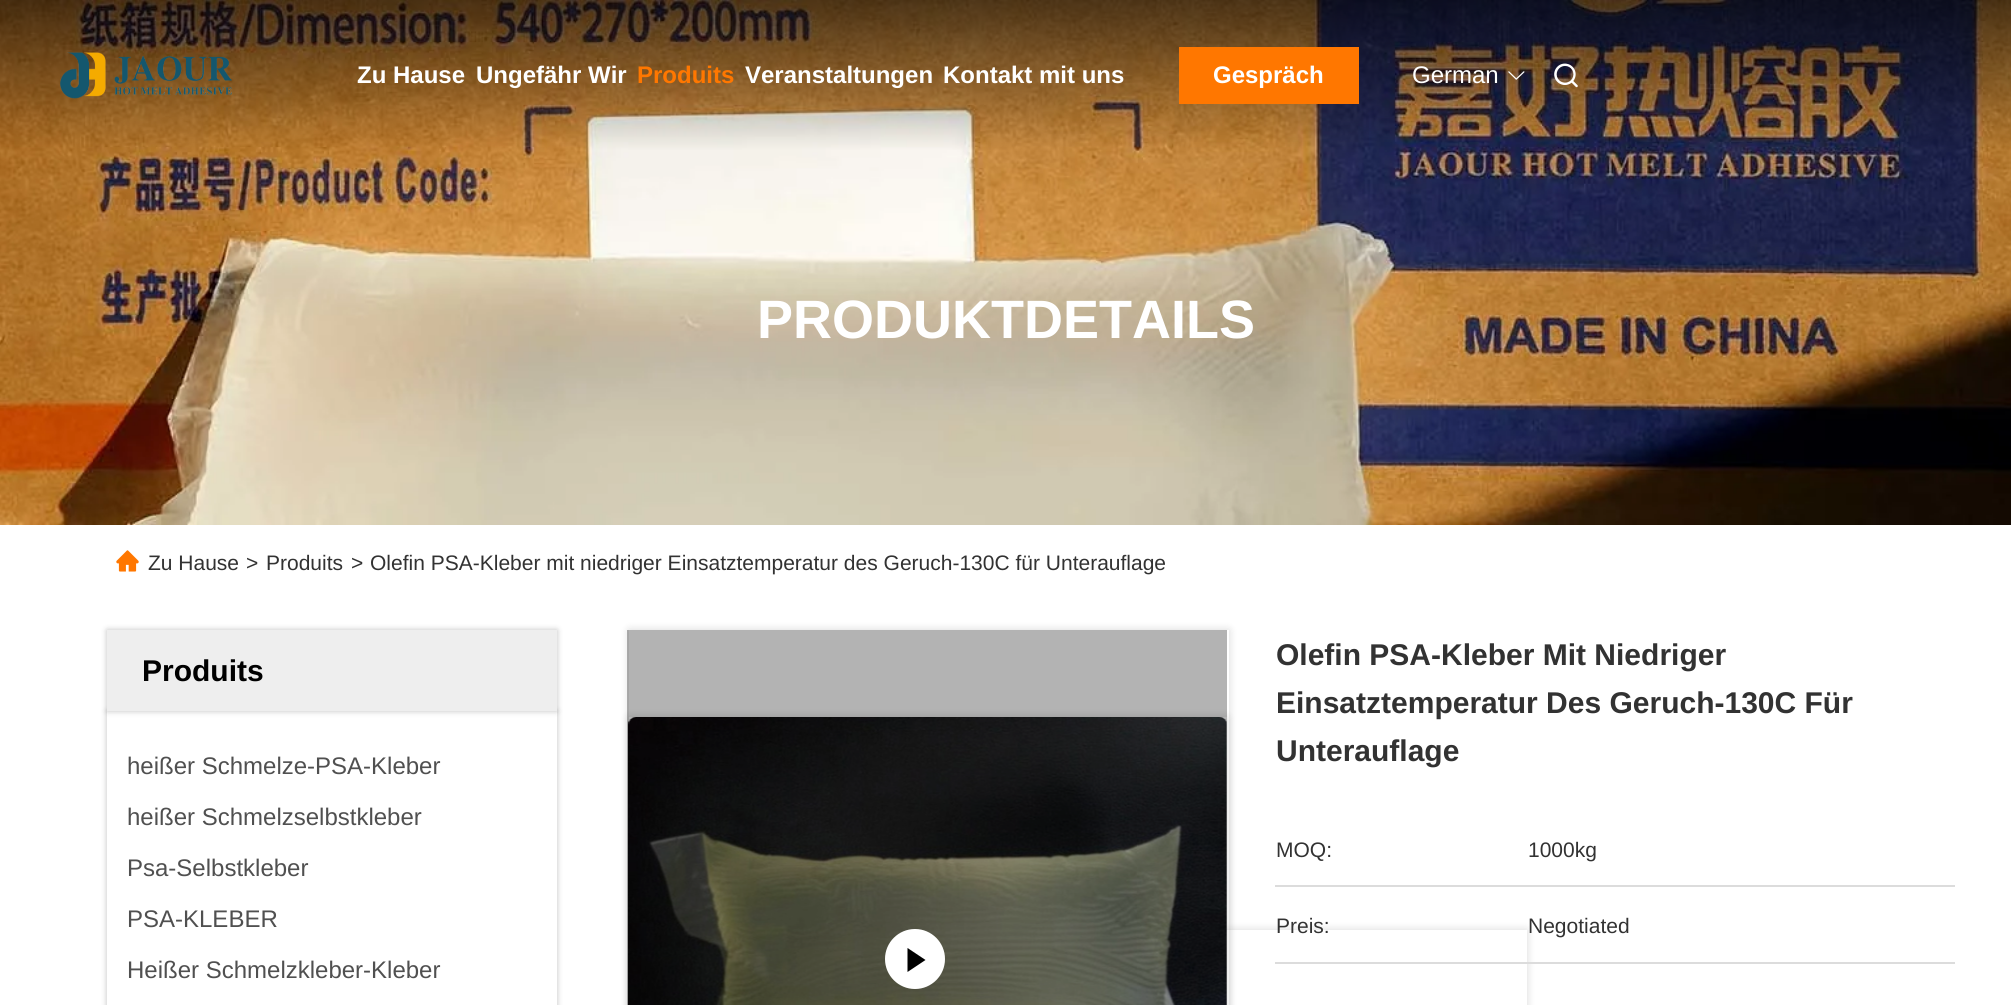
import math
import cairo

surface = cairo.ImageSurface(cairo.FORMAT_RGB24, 2011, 1005)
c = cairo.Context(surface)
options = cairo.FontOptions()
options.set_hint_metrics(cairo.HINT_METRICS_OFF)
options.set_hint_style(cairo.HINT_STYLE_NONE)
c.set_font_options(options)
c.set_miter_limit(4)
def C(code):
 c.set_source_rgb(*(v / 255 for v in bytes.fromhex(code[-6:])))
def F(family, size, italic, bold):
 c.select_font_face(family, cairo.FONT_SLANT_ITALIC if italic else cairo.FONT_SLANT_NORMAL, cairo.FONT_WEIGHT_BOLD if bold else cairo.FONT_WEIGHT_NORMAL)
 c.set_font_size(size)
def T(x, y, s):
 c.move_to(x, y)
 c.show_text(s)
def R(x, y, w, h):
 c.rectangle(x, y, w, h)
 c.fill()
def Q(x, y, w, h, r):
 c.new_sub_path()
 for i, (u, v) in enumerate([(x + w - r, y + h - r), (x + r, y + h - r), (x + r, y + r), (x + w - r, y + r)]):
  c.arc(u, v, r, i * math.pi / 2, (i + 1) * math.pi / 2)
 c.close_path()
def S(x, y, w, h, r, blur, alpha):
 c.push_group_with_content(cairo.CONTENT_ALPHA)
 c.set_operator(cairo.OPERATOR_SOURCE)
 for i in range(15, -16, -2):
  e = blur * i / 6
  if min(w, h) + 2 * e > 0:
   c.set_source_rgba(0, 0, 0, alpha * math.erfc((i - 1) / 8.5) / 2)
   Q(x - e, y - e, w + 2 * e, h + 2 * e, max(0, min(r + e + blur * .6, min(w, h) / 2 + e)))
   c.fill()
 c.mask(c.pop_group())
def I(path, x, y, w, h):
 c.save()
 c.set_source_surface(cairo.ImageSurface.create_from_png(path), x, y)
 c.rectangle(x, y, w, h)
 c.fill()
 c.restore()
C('ffffff')
c.paint()
I('4.png',0,0,2011,525)
I('1.png',60,52,172,47)
F('Liberation Sans',24,0,1)
C('ffffff')
T(357,83,'Zu Hause')
T(476,83,'Ungefähr Wir')
C('ff7700')
T(637,83,'Produits')
C('ffffff')
T(745,83,'Veranstaltungen')
T(943,83,'Kontakt mit uns')
C('ff7700')
R(1179,47,180,57)
C('ffffff')
T(1213,83,'Gespräch')
F('Liberation Sans',24,0,0)
T(1412,83,'German')
I('2.png',1508,71,17,9)
I('3.png',1554,63,24,25)
F('Liberation Sans',54,0,1)
T(757,338,'PRODUKTDETAILS')
I('5.png',116,550,23,22)
F('Liberation Sans',21,0,0)
C('323232')
T(148,570,'Zu Hause')
T(246,570,'>')
T(266,570,'Produits')
T(351,570,'>')
T(370,570,'Olefin PSA-Kleber mit niedriger Einsatztemperatur des Geruch-130C für Unterauflage')
C('000000')
S(107,711,450,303,0,3,.25)
C('ffffff')
R(107,711,450,294)
C('000000')
S(107,630,450,81,0,3,.25)
C('eeeeee')
R(107,630,450,81)
F('Liberation Sans',30,0,1)
C('000000')
T(142,681,'Produits')
F('Liberation Sans',24,0,0)
C('505050')
T(127,774,'heißer Schmelze-PSA-Kleber')
T(127,825,'heißer Schmelzselbstkleber')
T(127,876,'Psa-Selbstkleber')
T(127,927,'PSA-KLEBER')
T(127,978,'Heißer Schmelzkleber-Kleber')
c.save()
c.set_fill_rule(cairo.FILL_RULE_EVEN_ODD)
c.new_path()
c.move_to(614,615)
c.line_to(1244,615)
c.line_to(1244,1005)
c.line_to(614,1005)
c.close_path()
c.move_to(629,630)
c.line_to(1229,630)
c.line_to(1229,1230)
c.line_to(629,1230)
c.close_path()
c.clip()
C('000000')
S(629,630,600,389,0,4.5,.15)
c.restore()
c.save()
c.set_fill_rule(cairo.FILL_RULE_EVEN_ODD)
c.new_path()
c.move_to(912,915)
c.line_to(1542,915)
c.line_to(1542,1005)
c.line_to(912,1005)
c.close_path()
c.move_to(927,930)
c.line_to(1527,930)
c.line_to(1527,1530)
c.line_to(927,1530)
c.close_path()
c.clip()
C('000000')
S(927,930,600,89,0,4.5,.15)
c.restore()
c.save()
c.set_fill_rule(cairo.FILL_RULE_EVEN_ODD)
c.new_path()
c.move_to(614,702)
c.line_to(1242,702)
c.line_to(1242,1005)
c.line_to(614,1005)
c.close_path()
c.move_to(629,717)
c.line_to(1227,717)
c.line_to(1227,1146)
c.line_to(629,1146)
c.close_path()
c.clip()
C('000000')
S(629,717,598,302,0,4.5,.15)
c.restore()
I('6.png',628,717,599,288)
c.set_source_rgba(0,0,0,0.3)
R(627,630,600,375)
C('ffffff')
c.arc(915,959,29,0,2 * math.pi)
c.fill_preserve()
c.stroke()
C('000000')
c.new_path()
c.move_to(907.5,972)
c.line_to(907.5,948)
c.line_to(925.5,960)
c.close_path()
c.fill()
F('Liberation Sans',30,0,1)
C('323232')
T(1276,665,'Olefin PSA-Kleber Mit Niedriger')
T(1276,713,'Einsatztemperatur Des Geruch-130C Für')
T(1276,761,'Unterauflage')
C('dcdcdc')
R(1275,885,680,2)
F('Liberation Sans',21,0,0)
C('323232')
T(1276,857,'MOQ:')
T(1528,857,'1000kg')
C('dcdcdc')
R(1275,962,680,2)
C('323232')
T(1276,933,'Preis:')
T(1528,933,'Negotiated')
surface.write_to_png('o.png')
